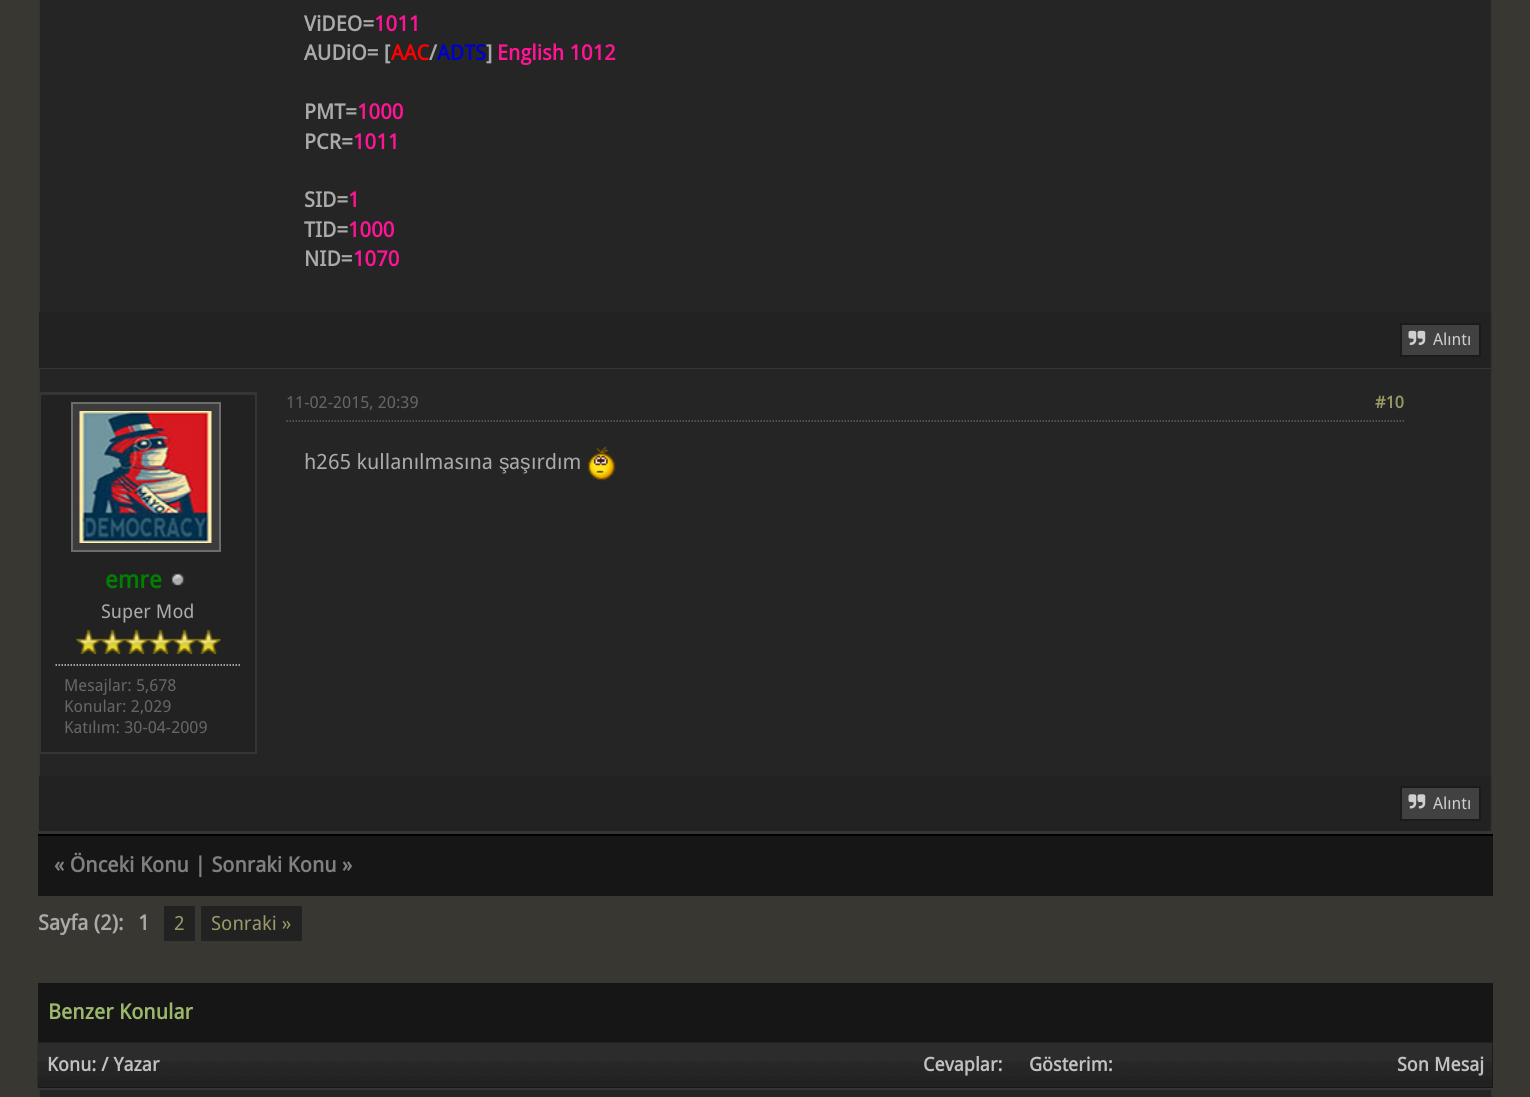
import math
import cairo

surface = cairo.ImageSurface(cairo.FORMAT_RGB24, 1530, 1097)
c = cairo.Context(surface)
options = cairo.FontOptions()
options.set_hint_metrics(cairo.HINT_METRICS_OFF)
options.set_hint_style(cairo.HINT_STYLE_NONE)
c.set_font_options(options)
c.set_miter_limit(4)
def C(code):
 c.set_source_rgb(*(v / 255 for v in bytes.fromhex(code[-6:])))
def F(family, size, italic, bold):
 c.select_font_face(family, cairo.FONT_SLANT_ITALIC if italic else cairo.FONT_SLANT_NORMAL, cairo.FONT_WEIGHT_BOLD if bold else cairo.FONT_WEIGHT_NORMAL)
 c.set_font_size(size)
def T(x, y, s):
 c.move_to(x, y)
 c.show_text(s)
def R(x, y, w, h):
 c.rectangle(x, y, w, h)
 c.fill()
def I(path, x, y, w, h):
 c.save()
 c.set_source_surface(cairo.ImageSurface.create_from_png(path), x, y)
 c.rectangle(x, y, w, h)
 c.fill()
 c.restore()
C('393731')
c.paint()
C('252525')
R(40,0,1451,776)
c.rectangle(39,-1,1453,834)
C('353535')
c.stroke()
F('Droid Sans',21,0,1)
C('aaaaaa')
T(304,31,'ViDEO=')
C('ff1493')
T(374,31,'1011')
C('aaaaaa')
T(304,60,'AUDiO= [')
C('ff0000')
T(391,60,'AAC')
C('aaaaaa')
T(429,60,'/')
C('0000cd')
T(437,60,'ADTS')
C('aaaaaa')
T(486,60,']')
C('ff1493')
T(497,60,'English 1012')
C('aaaaaa')
T(304,119,'PMT=')
C('ff1493')
T(357,119,'1000')
C('aaaaaa')
T(304,149,'PCR=')
C('ff1493')
T(353,149,'1011')
C('aaaaaa')
T(304,207,'SID=')
C('ff1493')
T(348,207,'1')
C('aaaaaa')
T(304,237,'TID=')
C('ff1493')
T(348,237,'1000')
C('aaaaaa')
T(304,266,'NID=')
C('ff1493')
T(353,266,'1070')
C('222222')
R(39,312,1452,56)
C('353535')
R(39,368,1452,1)
C('414141')
c.rectangle(1401,324,79,32)
c.fill_preserve()
C('1b1b1b')
c.stroke()
I('1.png',1408,330,18,15)
F('Droid Sans',16.5,0,0)
C('cfcfcf')
T(1433,345,'Alıntı')
c.new_path()
c.move_to(286.5,421)
c.line_to(1404,421)
C('5f5f5f')
c.set_line_width(1.5)
c.set_dash([1.5,1.5])
c.stroke()
C('666666')
T(286,408,'11-02-2015, 20:39')
F('Droid Sans',16.5,0,1)
C('999966')
T(1375,408,'#10')
F('Droid Sans',21,0,0)
C('aaaaaa')
T(304,469,'h265 kullanılmasına')
F('Liberation Sans',21,0,0)
T(499,469,'ş')
F('Droid Sans',21,0,0)
T(509,469,'a')
F('Liberation Sans',21,0,0)
T(520,469,'ş')
F('Droid Sans',21,0,0)
T(531,469,'ırdım')
I('2.png',587,446,29,35)
C('222222')
R(41,395,214,357)
C('353535')
R(39,392,218,3)
R(255,392,2,361)
R(39,752,218,2)
R(40,392,1,361)
C('3c3c3c')
c.rectangle(72,403,148,148)
c.fill_preserve()
C('6c6c6c')
c.set_line_width(2)
c.set_dash([])
c.stroke()
I('3.png',79,411,133,132)
F('Droid Sans',24,0,1)
C('008000')
T(105,588,'emre')
I('4.png',171,573,14,14)
F('Droid Sans',19,0,0)
C('aaaaaa')
T(101,618,'Super Mod')
I('5.png',76,630,25,24)
I('6.png',100,630,25,24)
I('6.png',124,630,25,24)
I('6.png',148,630,25,24)
I('6.png',172,630,25,24)
I('6.png',196,630,25,24)
c.new_path()
c.move_to(55.5,665)
c.line_to(241.5,665)
C('cccccc')
c.set_line_width(1.5)
c.set_dash([1.5,1.5])
c.stroke()
F('Droid Sans',16.5,0,0)
C('666666')
T(64,691,'Mesajlar: 5,678')
T(64,712,'Konular: 2,029')
T(64,733,'Katılım: 30-04-2009')
C('222222')
R(39,776,1452,55)
C('353535')
R(39,831,1452,1)
C('414141')
c.rectangle(1401,787,79,33)
c.fill_preserve()
C('1b1b1b')
c.set_line_width(2)
c.set_dash([])
c.stroke()
I('7.png',1408,794,18,15)
C('cfcfcf')
T(1433,809,'Alıntı')
C('161616')
R(38,836,1455,60)
C('000000')
R(38,834,1455,2)
F('Droid Sans',21,0,1)
C('808080')
T(54,872,'« Önceki Konu | Sonraki Konu »')
C('aaaaaa')
T(38,930,'Sayfa (2):')
T(138,930,'1')
C('222222')
R(164,906,31,35)
F('Droid Sans',19.5,0,0)
C('999966')
T(174,930,'2')
C('222222')
R(201,906,101,35)
C('999966')
T(211,930,'Sonraki »')
C('161616')
R(38,983,1455,60)
F('Droid Sans',21,0,1)
C('9cb86a')
T(48,1019,'Benzer Konular')
C('0f0f0f')
R(38,1043,1455,45)
I('8.png',37,1042,1456,46)
F('Droid Sans',19,0,1)
C('c0c0c0')
T(47,1071,'Konu: / Yazar')
T(923,1071,'Cevaplar:')
T(1029,1071,'Gösterim:')
T(1397,1071,'Son Mesaj')
C('252525')
c.rectangle(39,1089,1453,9)
c.fill_preserve()
C('353535')
c.stroke()
surface.write_to_png('o.png')
